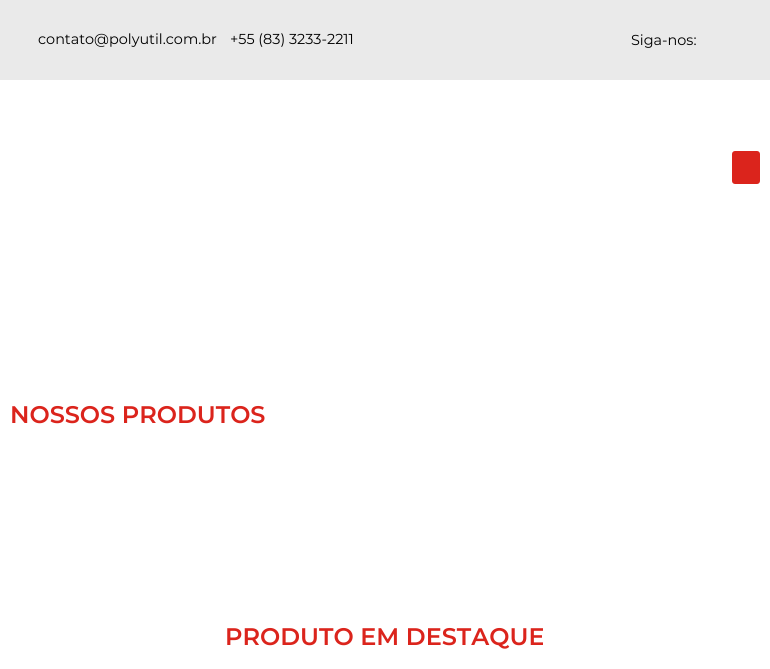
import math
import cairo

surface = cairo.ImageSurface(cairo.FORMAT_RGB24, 770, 669)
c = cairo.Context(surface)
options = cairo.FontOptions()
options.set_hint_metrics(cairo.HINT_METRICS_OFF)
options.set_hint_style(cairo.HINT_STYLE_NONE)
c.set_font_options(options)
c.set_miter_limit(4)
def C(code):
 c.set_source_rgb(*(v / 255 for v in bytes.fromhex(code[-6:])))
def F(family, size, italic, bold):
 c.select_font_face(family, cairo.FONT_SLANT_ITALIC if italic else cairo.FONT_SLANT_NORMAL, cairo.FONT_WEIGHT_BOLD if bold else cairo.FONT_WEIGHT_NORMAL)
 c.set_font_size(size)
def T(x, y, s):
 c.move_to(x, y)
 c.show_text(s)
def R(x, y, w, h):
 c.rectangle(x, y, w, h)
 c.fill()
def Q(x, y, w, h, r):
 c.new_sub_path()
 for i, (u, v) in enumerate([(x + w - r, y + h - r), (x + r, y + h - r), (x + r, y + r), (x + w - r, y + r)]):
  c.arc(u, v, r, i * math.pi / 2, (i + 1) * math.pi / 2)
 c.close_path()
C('ffffff')
c.paint()
C('eaeaea')
R(0,0,770,80)
F('Montserrat',14.4,0,0)
C('000000')
T(38,44,'contato@polyutil.com.br')
T(230,44,'+55 (83) 3233-2211')
T(631,45,'Siga-nos:')
C('db241c')
Q(732,151,28,33,3)
c.fill()
F('Montserrat SemiBold',24,0,0)
T(10,423,'NOSSOS PRODUTOS')
T(225,645,'PRODUTO EM DESTAQUE')
surface.write_to_png('o.png')
